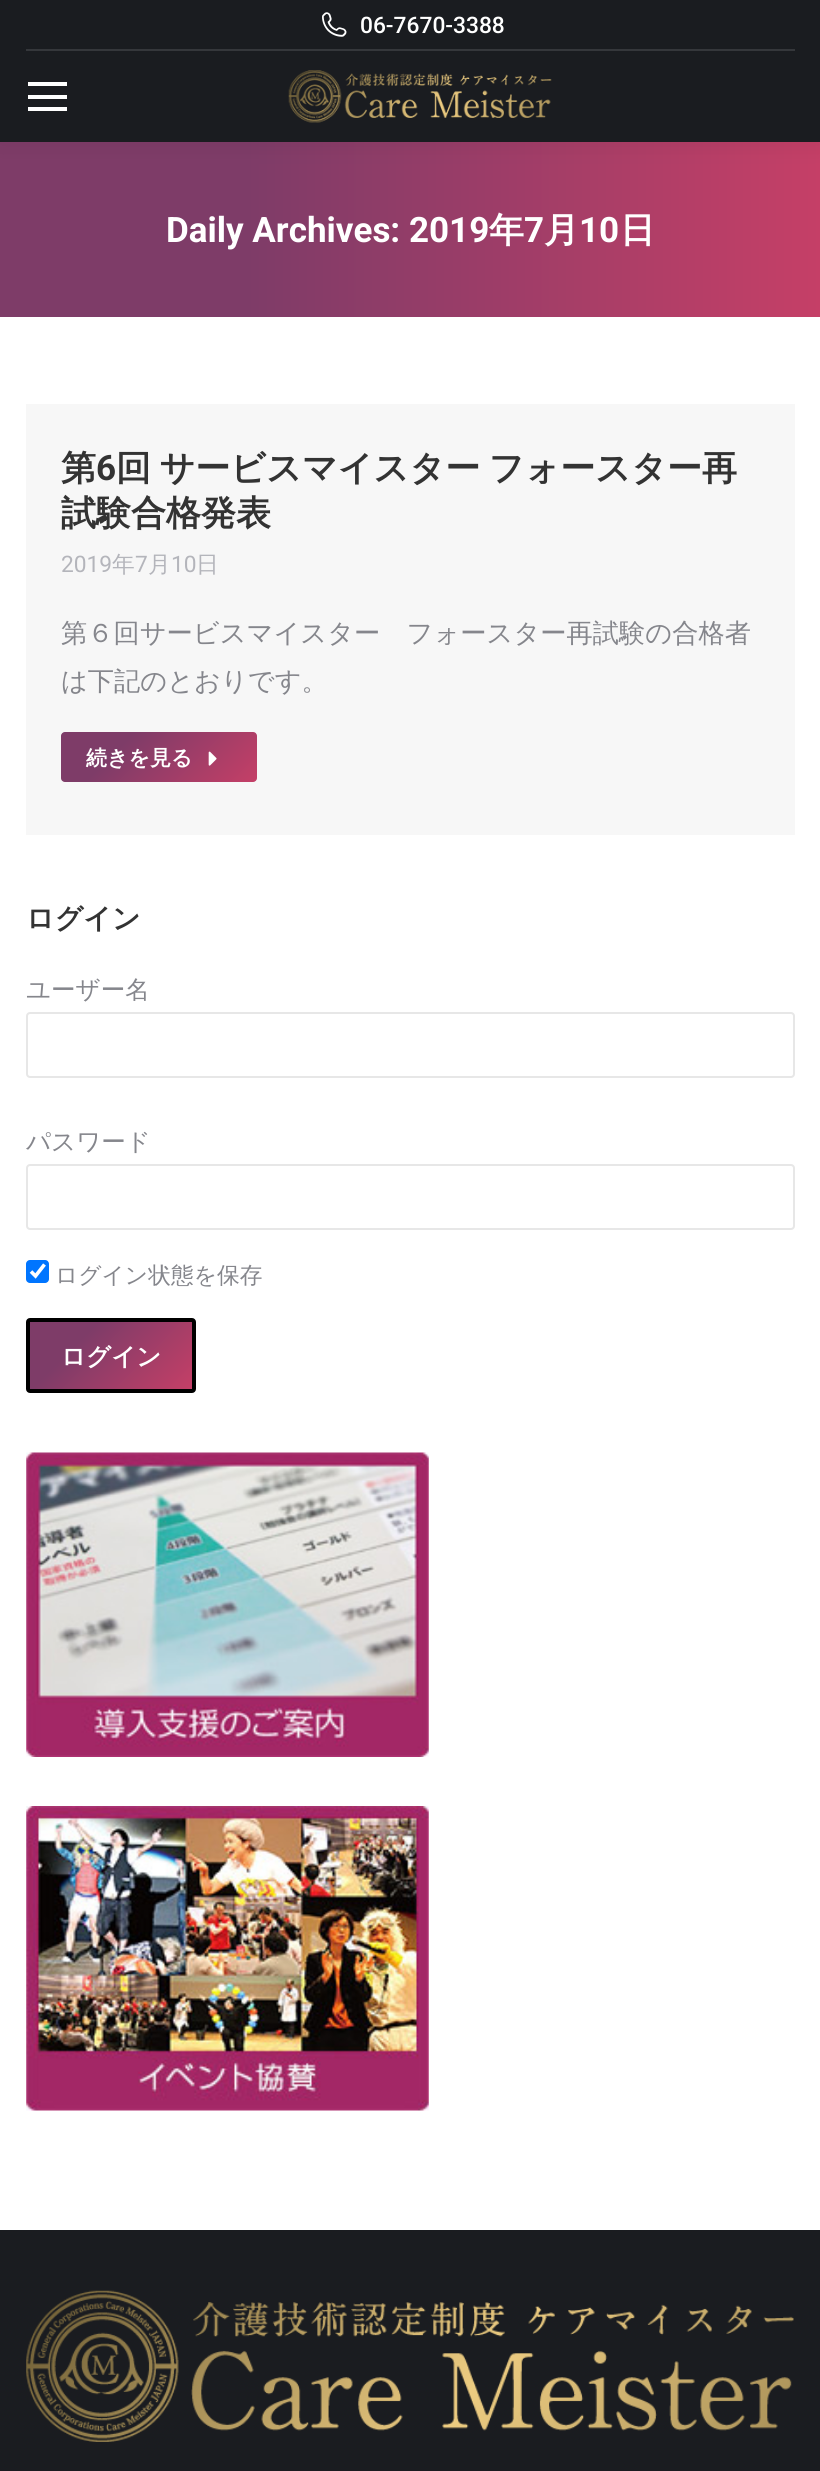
import math
import cairo

surface = cairo.ImageSurface(cairo.FORMAT_RGB24, 820, 2471)
c = cairo.Context(surface)
options = cairo.FontOptions()
options.set_hint_metrics(cairo.HINT_METRICS_OFF)
options.set_hint_style(cairo.HINT_STYLE_NONE)
c.set_font_options(options)
c.set_miter_limit(4)
def C(code):
 c.set_source_rgb(*(v / 255 for v in bytes.fromhex(code[-6:])))
def F(family, size, italic, bold):
 c.select_font_face(family, cairo.FONT_SLANT_ITALIC if italic else cairo.FONT_SLANT_NORMAL, cairo.FONT_WEIGHT_BOLD if bold else cairo.FONT_WEIGHT_NORMAL)
 c.set_font_size(size)
def T(x, y, s):
 c.move_to(x, y)
 c.show_text(s)
def L(x, y, s, letter, word):
 c.move_to(x, y)
 for ch in s:
  c.show_text(ch)
  c.rel_move_to(letter + word * (ch == ' '), 0)
def R(x, y, w, h):
 c.rectangle(x, y, w, h)
 c.fill()
def Q(x, y, w, h, r):
 c.new_sub_path()
 for i, (u, v) in enumerate([(x + w - r, y + h - r), (x + r, y + h - r), (x + r, y + r), (x + w - r, y + r)]):
  c.arc(u, v, r, i * math.pi / 2, (i + 1) * math.pi / 2)
 c.close_path()
def S(x, y, w, h, r, blur, alpha):
 c.push_group_with_content(cairo.CONTENT_ALPHA)
 c.set_operator(cairo.OPERATOR_SOURCE)
 for i in range(15, -16, -2):
  e = blur * i / 6
  if min(w, h) + 2 * e > 0:
   c.set_source_rgba(0, 0, 0, alpha * math.erfc((i - 1) / 8.5) / 2)
   Q(x - e, y - e, w + 2 * e, h + 2 * e, max(0, min(r + e + blur * .6, min(w, h) / 2 + e)))
   c.fill()
 c.mask(c.pop_group())
def I(path, x, y, w, h):
 c.save()
 c.set_source_surface(cairo.ImageSurface.create_from_png(path), x, y)
 c.rectangle(x, y, w, h)
 c.fill()
 c.restore()
C('ffffff')
c.paint()
gradient = cairo.LinearGradient(0,229,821,229)
gradient.add_color_stop_rgba(.3,0.494,0.235,0.408,1)
gradient.add_color_stop_rgba(1,0.773,0.247,0.404,1)
c.set_source(gradient)
R(0,142,820,175)
C('000000')
S(-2,-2,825,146,0,13,.07)
C('1a1c20')
R(0,0,820,142)
I('1.png',322,12,25,25)
F('Roboto Medium',22.75,0,0)
C('ffffff')
T(360,33,'06-7670-3388')
C('35373b')
R(26,49,769,2)
C('ffffff')
R(28,82,39,4)
R(28,95,39,4)
R(28,107,39,4)
I('2.png',288,70,264,53)
F('Roboto',35,0,1)
T(166,242,'Daily Archives: 2019')
F('WenQuanYi Zen Hei',35,0,1)
T(489,242,'年')
F('Roboto',35,0,1)
T(524,242,'7')
F('WenQuanYi Zen Hei',35,0,1)
T(544,242,'月')
F('Roboto',35,0,1)
T(579,242,'10')
F('WenQuanYi Zen Hei',35,0,1)
T(620,242,'日')
C('f7f7f7')
R(26,404,769,431)
C('333333')
T(61,480,'第')
F('Roboto',35,0,1)
T(96,480,'6')
F('WenQuanYi Zen Hei',35,0,1)
L(116,480,'回 サービスマイスター フォースター再',0,-2)
T(61,525,'試験合格発表')
F('Roboto',22.75,0,0)
C('b4b5bb')
T(61,572,'2019')
F('WenQuanYi Zen Hei Medium',22.75,0,0)
T(112,572,'年')
F('Roboto',22.75,0,0)
T(135,572,'7')
F('WenQuanYi Zen Hei Medium',22.75,0,0)
T(148,572,'月')
F('Roboto',22.75,0,0)
T(171,572,'10')
F('WenQuanYi Zen Hei Medium',22.75,0,0)
T(196,572,'日')
F('WenQuanYi Zen Hei Medium',26.25,0,0)
C('85868c')
T(61,642,'第６回サービスマイスター　フォースター再試験の合格者')
T(61,690,'は下記のとおりです。')
gradient = cairo.LinearGradient(98,695,221,819)
gradient.add_color_stop_rgba(.3,0.494,0.235,0.408,1)
gradient.add_color_stop_rgba(1,0.773,0.247,0.404,1)
c.set_source(gradient)
Q(61,732,196,50,4)
c.fill()
F('WenQuanYi Zen Hei',21,0,1)
C('ffffff')
T(86,765,'続きを見る')
I('3.png',208,751,9,15)
F('WenQuanYi Zen Hei',28,0,1)
C('333333')
T(26,928,'ログイン')
F('WenQuanYi Zen Hei Medium',24.5,0,0)
C('85868c')
T(26,998,'ユーザー名')
Q(27,1013,767,64,3)
C('e7e7e7')
c.stroke()
C('85868c')
T(26,1150,'パスワード')
Q(27,1165,767,64,3)
C('e7e7e7')
c.stroke()
C('0075ff')
Q(26,1260,23,23,4)
c.fill()
c.new_path()
c.move_to(31,1271.5)
c.line_to(35.5,1276)
c.line_to(44.5,1264.5)
C('ffffff')
c.set_line_width(3.6)
c.stroke()
F('WenQuanYi Zen Hei Medium',22.75,0,0)
C('85868c')
T(55,1283,'ログイン状態を保存')
gradient = cairo.LinearGradient(53,1298,169,1413)
gradient.add_color_stop_rgba(.3,0.494,0.235,0.408,1)
gradient.add_color_stop_rgba(1,0.773,0.247,0.404,1)
c.set_source(gradient)
R(30,1322,162,67)
Q(28,1320,166,71,2)
C('000000')
c.set_line_width(4)
c.stroke()
F('WenQuanYi Zen Hei',24.5,0,1)
C('ffffff')
T(61,1365,'ログイン')
I('4.png',26,1452,403,305)
I('5.png',26,1806,403,305)
C('1a1c20')
R(0,2230,820,241)
I('6.png',26,2290,768,152)
surface.write_to_png('o.png')
